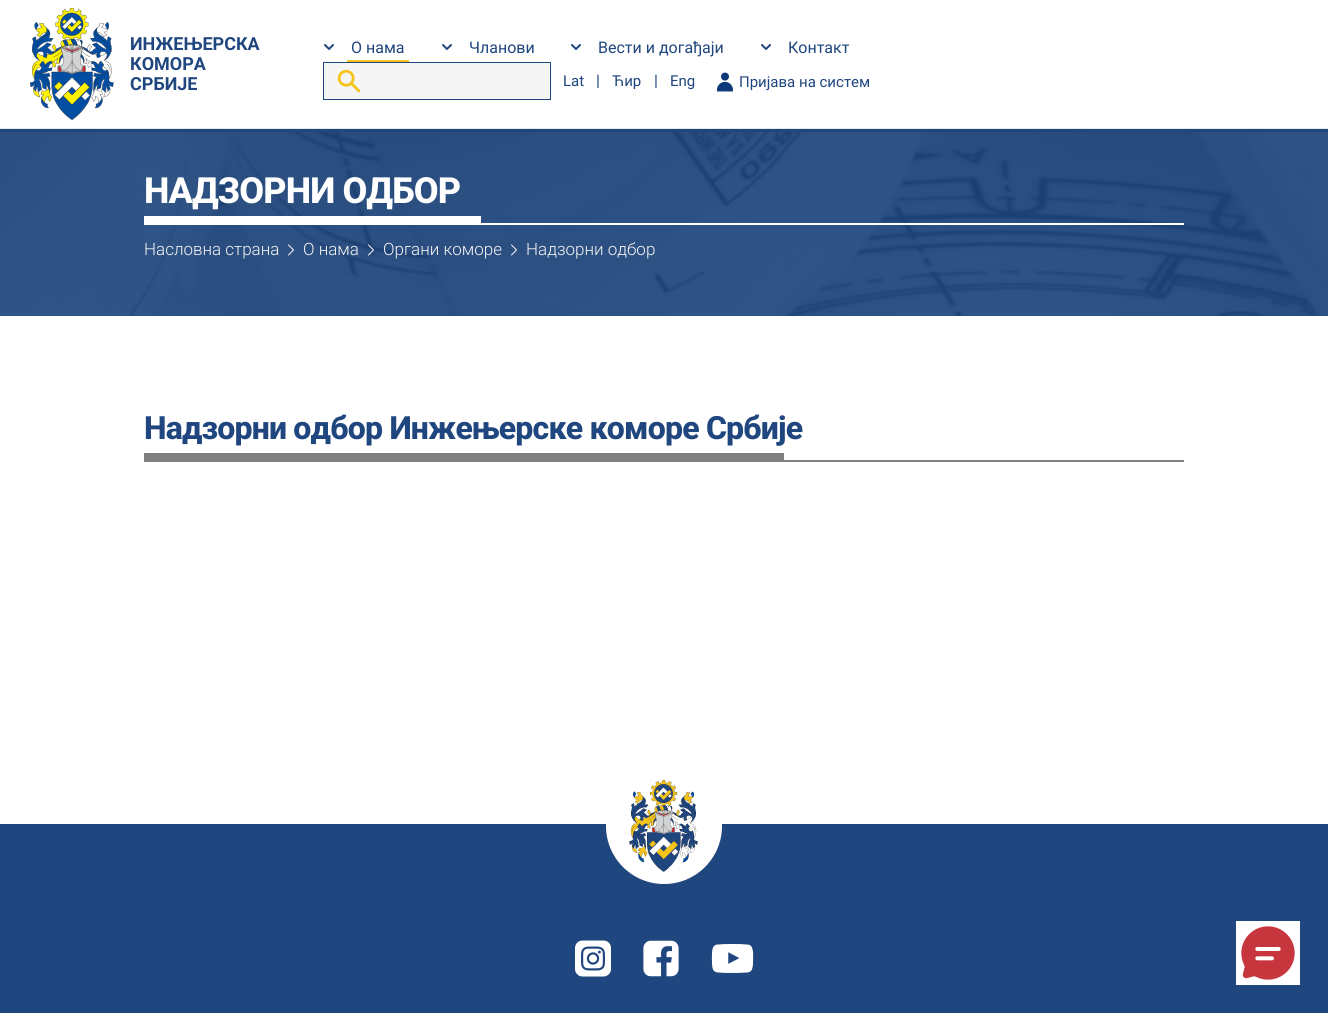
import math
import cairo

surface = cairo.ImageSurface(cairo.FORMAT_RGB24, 1328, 1013)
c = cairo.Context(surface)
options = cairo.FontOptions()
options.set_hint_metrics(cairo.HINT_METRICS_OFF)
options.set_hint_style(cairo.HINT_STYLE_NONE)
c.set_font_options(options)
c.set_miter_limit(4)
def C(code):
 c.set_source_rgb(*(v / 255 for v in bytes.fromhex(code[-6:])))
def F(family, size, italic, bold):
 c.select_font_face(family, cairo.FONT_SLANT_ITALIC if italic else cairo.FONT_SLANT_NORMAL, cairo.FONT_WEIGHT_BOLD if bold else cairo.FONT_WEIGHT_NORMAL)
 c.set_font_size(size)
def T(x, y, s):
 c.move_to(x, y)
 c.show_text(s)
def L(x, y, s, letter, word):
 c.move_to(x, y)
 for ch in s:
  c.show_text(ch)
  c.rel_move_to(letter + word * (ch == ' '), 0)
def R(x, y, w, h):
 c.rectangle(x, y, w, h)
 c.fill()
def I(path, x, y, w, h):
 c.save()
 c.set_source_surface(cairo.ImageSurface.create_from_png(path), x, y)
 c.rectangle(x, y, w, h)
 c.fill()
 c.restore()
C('ffffff')
c.paint()
I('1.png',30,8,84,112)
F('Roboto',18,0,1)
C('1f467e')
T(130,50,'ИНЖЕЊЕРСКА')
T(130,70,'КОМОРА')
T(130,90,'СРБИЈЕ')
c.new_path()
c.move_to(333,45)
c.line_to(329,49)
c.line_to(325,45)
c.set_line_cap(cairo.LINE_CAP_ROUND)
c.set_line_join(cairo.LINE_JOIN_ROUND)
c.stroke()
C('f4c41c')
R(347,60,62,2)
F('Roboto',16,0,0)
C('1f467e')
T(351,53,'О нама')
c.new_path()
c.move_to(451,45)
c.line_to(447,49)
c.line_to(443,45)
c.stroke()
T(469,53,'Чланови')
c.new_path()
c.move_to(580,45)
c.line_to(576,49)
c.line_to(572,45)
c.stroke()
T(598,53,'Вести и догађаји')
c.new_path()
c.move_to(770,45)
c.line_to(766,49)
c.line_to(762,45)
c.stroke()
T(788,53,'Контакт')
C('f5f5f5')
c.rectangle(323.5,62.5,227,37)
c.fill_preserve()
C('1f467e')
c.set_line_width(1)
c.set_line_cap(cairo.LINE_CAP_BUTT)
c.set_line_join(cairo.LINE_JOIN_MITER)
c.stroke()
I('2.png',337,69,24,24)
F('Roboto',15,0,0)
T(563,86,'Lat')
F('Roboto',16,0,0)
T(596,86,'|')
F('Roboto',15,0,0)
T(612,86,'Ћир')
F('Roboto',16,0,0)
T(654,86,'|')
F('Roboto',15,0,0)
T(670,86,'Eng')
I('3.png',717,72,16,20)
T(739,87,'Пријава на систем')
R(0,129,1328,3)
C('e5e7eb')
R(0,128,1328,1)
I('4.png',0,132,1328,184)
C('ffffff')
R(144,223,1040,2)
F('Roboto ExtraBold',36,0,0)
L(144,203,'НАДЗОРНИ ОДБОР',-.9,0)
R(144,216,337,7)
F('Roboto Light',17,0,0)
C('f5f5f5')
T(144,255,'Насловна страна')
c.new_path()
c.move_to(288.5,245)
c.line_to(293.5,250)
c.line_to(288.5,255)
c.set_line_cap(cairo.LINE_CAP_ROUND)
c.set_line_join(cairo.LINE_JOIN_ROUND)
c.stroke()
T(303,255,'О нама')
c.new_path()
c.move_to(368.5,245)
c.line_to(373.5,250)
c.line_to(368.5,255)
c.stroke()
T(383,255,'Органи коморе')
c.new_path()
c.move_to(511.5,245)
c.line_to(516.5,250)
c.line_to(511.5,255)
c.stroke()
T(526,255,'Надзорни одбор')
C('7f7f7f')
R(144,460,1040,2)
F('Roboto ExtraBold',32,0,0)
C('1f467e')
L(144,439,'Надзорни одбор Инжењерске коморе Србије',-.8,0)
C('7f7f7f')
R(144,453,640,7)
C('1f467e')
R(0,824,1328,189)
I('5.png',606,780,116,104)
I('6.png',575,940,36,37)
I('7.png',643,940,36,37)
I('8.png',711,944,43,29)
C('ffffff')
R(1236,921,64,64)
I('9.png',1241,926,54,54)
surface.write_to_png('o.png')
